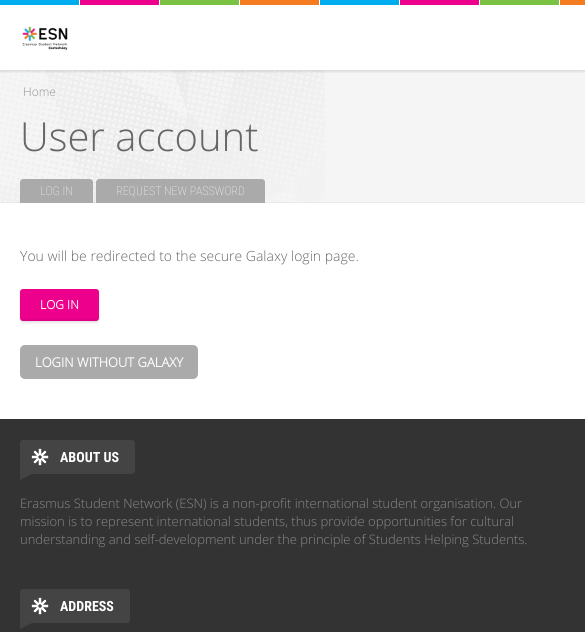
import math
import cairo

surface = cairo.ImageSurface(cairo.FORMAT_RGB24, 585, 632)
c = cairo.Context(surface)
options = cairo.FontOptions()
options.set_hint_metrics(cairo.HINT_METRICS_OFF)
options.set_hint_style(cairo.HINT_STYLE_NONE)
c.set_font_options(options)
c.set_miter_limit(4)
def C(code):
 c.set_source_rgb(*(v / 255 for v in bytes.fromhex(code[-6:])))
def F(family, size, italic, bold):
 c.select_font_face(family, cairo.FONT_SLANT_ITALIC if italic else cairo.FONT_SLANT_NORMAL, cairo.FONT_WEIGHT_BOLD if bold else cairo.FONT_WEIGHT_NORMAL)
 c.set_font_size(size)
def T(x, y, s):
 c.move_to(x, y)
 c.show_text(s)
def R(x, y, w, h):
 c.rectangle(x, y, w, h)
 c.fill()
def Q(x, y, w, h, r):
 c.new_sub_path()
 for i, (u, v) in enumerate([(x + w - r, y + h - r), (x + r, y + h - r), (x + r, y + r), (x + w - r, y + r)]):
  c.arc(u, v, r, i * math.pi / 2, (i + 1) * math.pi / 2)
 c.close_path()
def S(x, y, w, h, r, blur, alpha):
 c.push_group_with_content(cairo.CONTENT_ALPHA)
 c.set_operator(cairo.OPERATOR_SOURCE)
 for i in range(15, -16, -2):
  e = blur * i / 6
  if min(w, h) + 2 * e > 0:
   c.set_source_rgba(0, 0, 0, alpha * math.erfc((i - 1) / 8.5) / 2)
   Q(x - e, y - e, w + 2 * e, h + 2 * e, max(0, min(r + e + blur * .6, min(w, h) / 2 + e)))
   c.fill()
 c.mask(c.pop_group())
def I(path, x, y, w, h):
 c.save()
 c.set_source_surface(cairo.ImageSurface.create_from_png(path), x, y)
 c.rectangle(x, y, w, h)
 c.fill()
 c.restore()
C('ffffff')
c.paint()
C('f5f5f5')
R(0,70,585,133)
I('3.png',0,70,325,133)
c.save()
c.rectangle(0,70,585,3)
c.clip()
C('000000')
S(0,2,585,70,0,1,.1)
c.restore()
I('1.png',0,0,585,5)
I('2.png',22,26,46,25)
c.set_source_rgba(0,0,0,0.04)
R(0,202,585,1)
F('Open Sans Light',12,0,0)
C('929292')
T(23,96,'Home')
F('Open Sans Light',40,0,0)
C('666666')
T(20,151,'User account')
C('aaaaaa')
c.new_path()
c.move_to(23,179)
c.line_to(90,179)
c.curve_to(91.5,179,93,180.5,93,182)
c.line_to(93,203)
c.line_to(20,203)
c.line_to(20,182)
c.curve_to(20,180.5,21.5,179,23,179)
c.close_path()
c.fill()
F('Roboto Condensed Thin',12,0,0)
C('ffffff')
T(40,195,'LOG IN')
C('aaaaaa')
c.new_path()
c.move_to(99,179)
c.line_to(262,179)
c.curve_to(263.5,179,265,180.5,265,182)
c.line_to(265,203)
c.line_to(96,203)
c.line_to(96,182)
c.curve_to(96,180.5,97.5,179,99,179)
c.close_path()
c.fill()
C('ffffff')
T(116,195,'REQUEST NEW PASSWORD')
F('Open Sans Light',14,0,0)
C('666666')
T(20,261,'You will be redirected to the secure Galaxy login page.')
C('000000')
S(20,291,79,32,3,1,.1)
C('ed008c')
Q(20,289,79,32,3)
c.fill()
c.set_source_rgba(0,0,0,0.05)
c.new_path()
c.move_to(20,316)
c.curve_to(20,324,27,321,35,321)
c.line_to(84,321)
c.curve_to(92,321,99,324,99,316)
c.curve_to(99,318,98,319,96,319)
c.line_to(23,319)
c.curve_to(21,319,20,318,20,316)
c.close_path()
c.fill()
F('Open Sans',12,0,1)
C('ffffff')
T(40,309,'LOG IN')
C('aaaaaa')
Q(20,345,178,34,5)
c.fill()
F('Open Sans',13,0,1)
C('ffffff')
T(35,367,'LOGIN WITHOUT GALAXY')
C('333333')
R(0,419,585,213)
C('444444')
c.new_path()
c.move_to(23,440)
c.line_to(132,440)
c.curve_to(133.5,440,135,441.5,135,443)
c.line_to(135,471)
c.curve_to(135,472.5,133.5,474,132,474)
c.line_to(20,474)
c.line_to(20,443)
c.curve_to(20,441.5,21.5,440,23,440)
c.close_path()
c.fill()
I('4.png',31,448,18,18)
F('Roboto Condensed',14,0,1)
C('ffffff')
T(60,462,'ABOUT US')
C('444444')
c.new_path()
c.move_to(20,474)
c.line_to(32,474)
c.line_to(20,480)
c.close_path()
c.fill()
F('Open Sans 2 Light',13,0,0)
C('888888')
T(20,508,'Erasmus Student Network (ESN) is a non-profit international student organisation. Our')
T(20,526,'mission is to represent international students, thus provide opportunities for cultural')
T(20,544,'understanding and self-development under the principle of Students Helping Students.')
C('444444')
c.new_path()
c.move_to(23,589)
c.line_to(127,589)
c.curve_to(128.5,589,130,590.5,130,592)
c.line_to(130,620)
c.curve_to(130,621.5,128.5,623,127,623)
c.line_to(20,623)
c.line_to(20,592)
c.curve_to(20,590.5,21.5,589,23,589)
c.close_path()
c.fill()
I('4.png',31,597,18,18)
F('Roboto Condensed',14,0,1)
C('ffffff')
T(60,611,'ADDRESS')
C('444444')
c.new_path()
c.move_to(20,623)
c.line_to(32,623)
c.line_to(20,629)
c.close_path()
c.fill()
surface.write_to_png('o.png')
